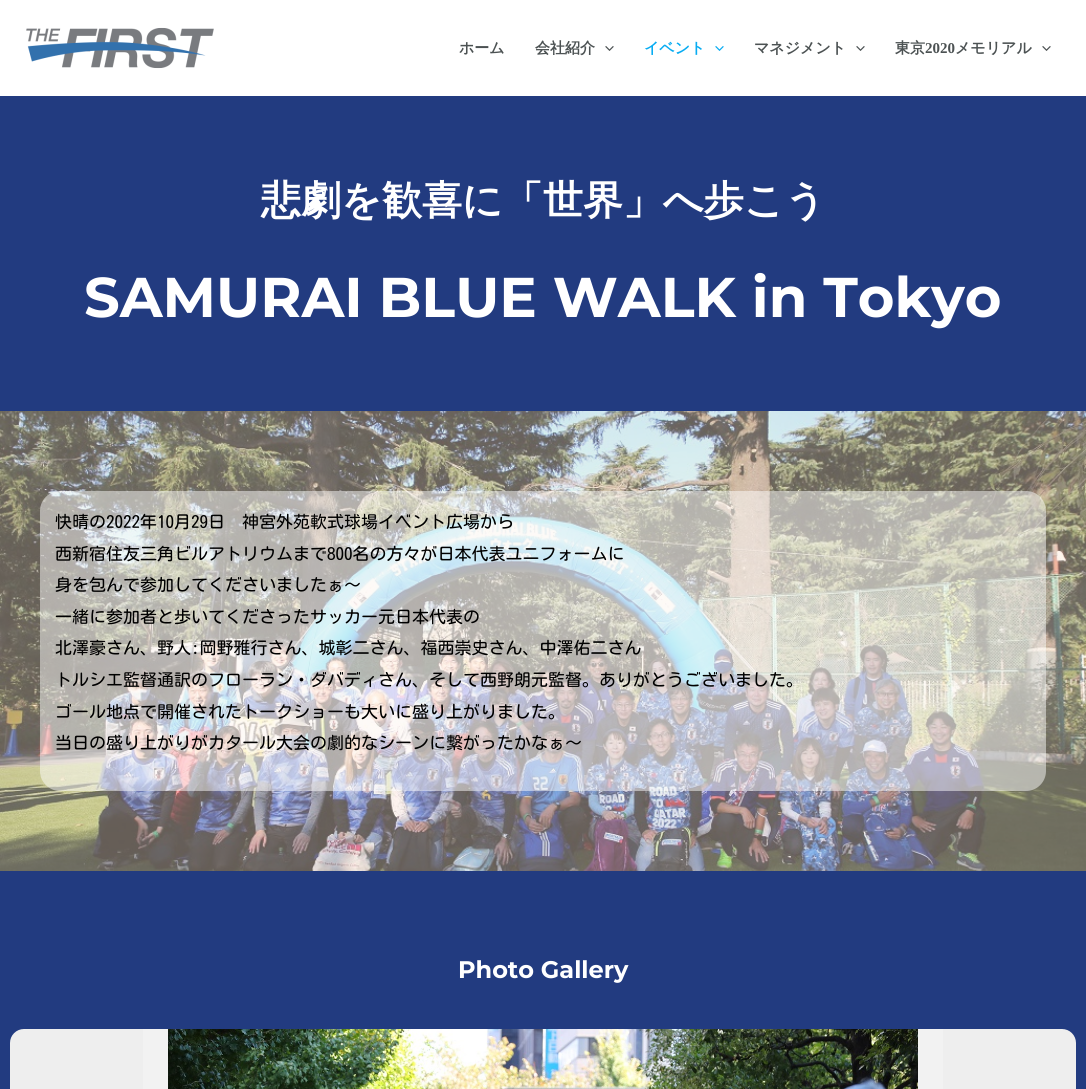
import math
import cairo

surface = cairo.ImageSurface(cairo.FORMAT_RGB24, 1086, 1089)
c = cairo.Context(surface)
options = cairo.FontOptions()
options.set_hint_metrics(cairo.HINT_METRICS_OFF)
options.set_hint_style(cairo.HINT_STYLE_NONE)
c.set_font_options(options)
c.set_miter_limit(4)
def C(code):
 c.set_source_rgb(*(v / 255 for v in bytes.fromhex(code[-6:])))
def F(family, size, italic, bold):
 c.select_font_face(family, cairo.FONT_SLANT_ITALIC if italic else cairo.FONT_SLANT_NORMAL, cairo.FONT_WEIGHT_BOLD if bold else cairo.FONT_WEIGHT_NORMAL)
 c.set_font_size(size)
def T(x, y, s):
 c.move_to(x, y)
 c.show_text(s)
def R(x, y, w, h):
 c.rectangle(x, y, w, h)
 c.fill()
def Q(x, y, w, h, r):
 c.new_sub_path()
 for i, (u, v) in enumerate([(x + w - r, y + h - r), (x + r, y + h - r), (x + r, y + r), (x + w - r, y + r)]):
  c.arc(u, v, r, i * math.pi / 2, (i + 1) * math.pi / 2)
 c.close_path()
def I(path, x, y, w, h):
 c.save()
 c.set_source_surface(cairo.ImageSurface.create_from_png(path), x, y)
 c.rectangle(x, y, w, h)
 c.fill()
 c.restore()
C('223b80')
c.paint()
C('ffffff')
R(0,0,1086,96)
I('1.png',26,27,188,42)
F('WenQuanYi Zen Hei',15,0,1)
C('4c5253')
T(459,53,'ホーム')
T(535,53,'会社紹介')
I('2.png',605,46,9,5)
C('08acf2')
T(644,53,'イベント')
I('3.png',715,46,9,5)
C('4c5253')
T(754,53,'マネジメント')
I('2.png',856,46,9,5)
T(895,53,'東京')
F('Liberation Serif',15,0,1)
T(925,53,'2020')
F('WenQuanYi Zen Hei',15,0,1)
T(955,53,'メモリアル')
I('2.png',1042,46,9,5)
F('WenQuanYi Zen Hei',40,0,1)
C('ffffff')
T(261,214,'悲劇を歓喜に「世界」へ歩こう')
F('Montserrat Thin',56,0,0)
T(84,317,'SAMURAI BLUE WALK in Tokyo')
I('4.png',0,411,1086,460)
c.set_source_rgba(1,1,1,0.49)
Q(40,491,1006,300,20)
c.fill()
F('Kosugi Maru',17,0,0)
C('000000')
T(55,528,'快晴の2022年10月29日　神宮外苑軟式球場イベント広場から')
T(55,560,'西新宿住友三角ビルアトリウムまで800名の方々が日本代表ユニフォームに')
T(55,591,'身を包んで参加してくださいましたぁ～')
T(55,623,'一緒に参加者と歩いてくださったサッカー元日本代表の')
T(55,654,'北澤豪さん、野人:岡野雅行さん、城彰二さん、福西崇史さん、中澤佑二さん')
T(55,686,'トルシエ監督通訳のフローラン・ダバディさん、そして西野朗元監督。ありがとうございました。')
T(55,718,'ゴール地点で開催されたトークショーも大いに盛り上がりました。')
T(55,749,'当日の盛り上がりがカタール大会の劇的なシーンに繋がったかなぁ～')
F('Montserrat Thin',24,0,0)
C('ffffff')
T(458,978,'Photo Gallery')
C('eeeeee')
Q(10,1029,1066,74,14)
c.fill()
C('f2f2f2')
R(143,1029,800,60)
I('5.png',168,1029,750,60)
surface.write_to_png('o.png')
